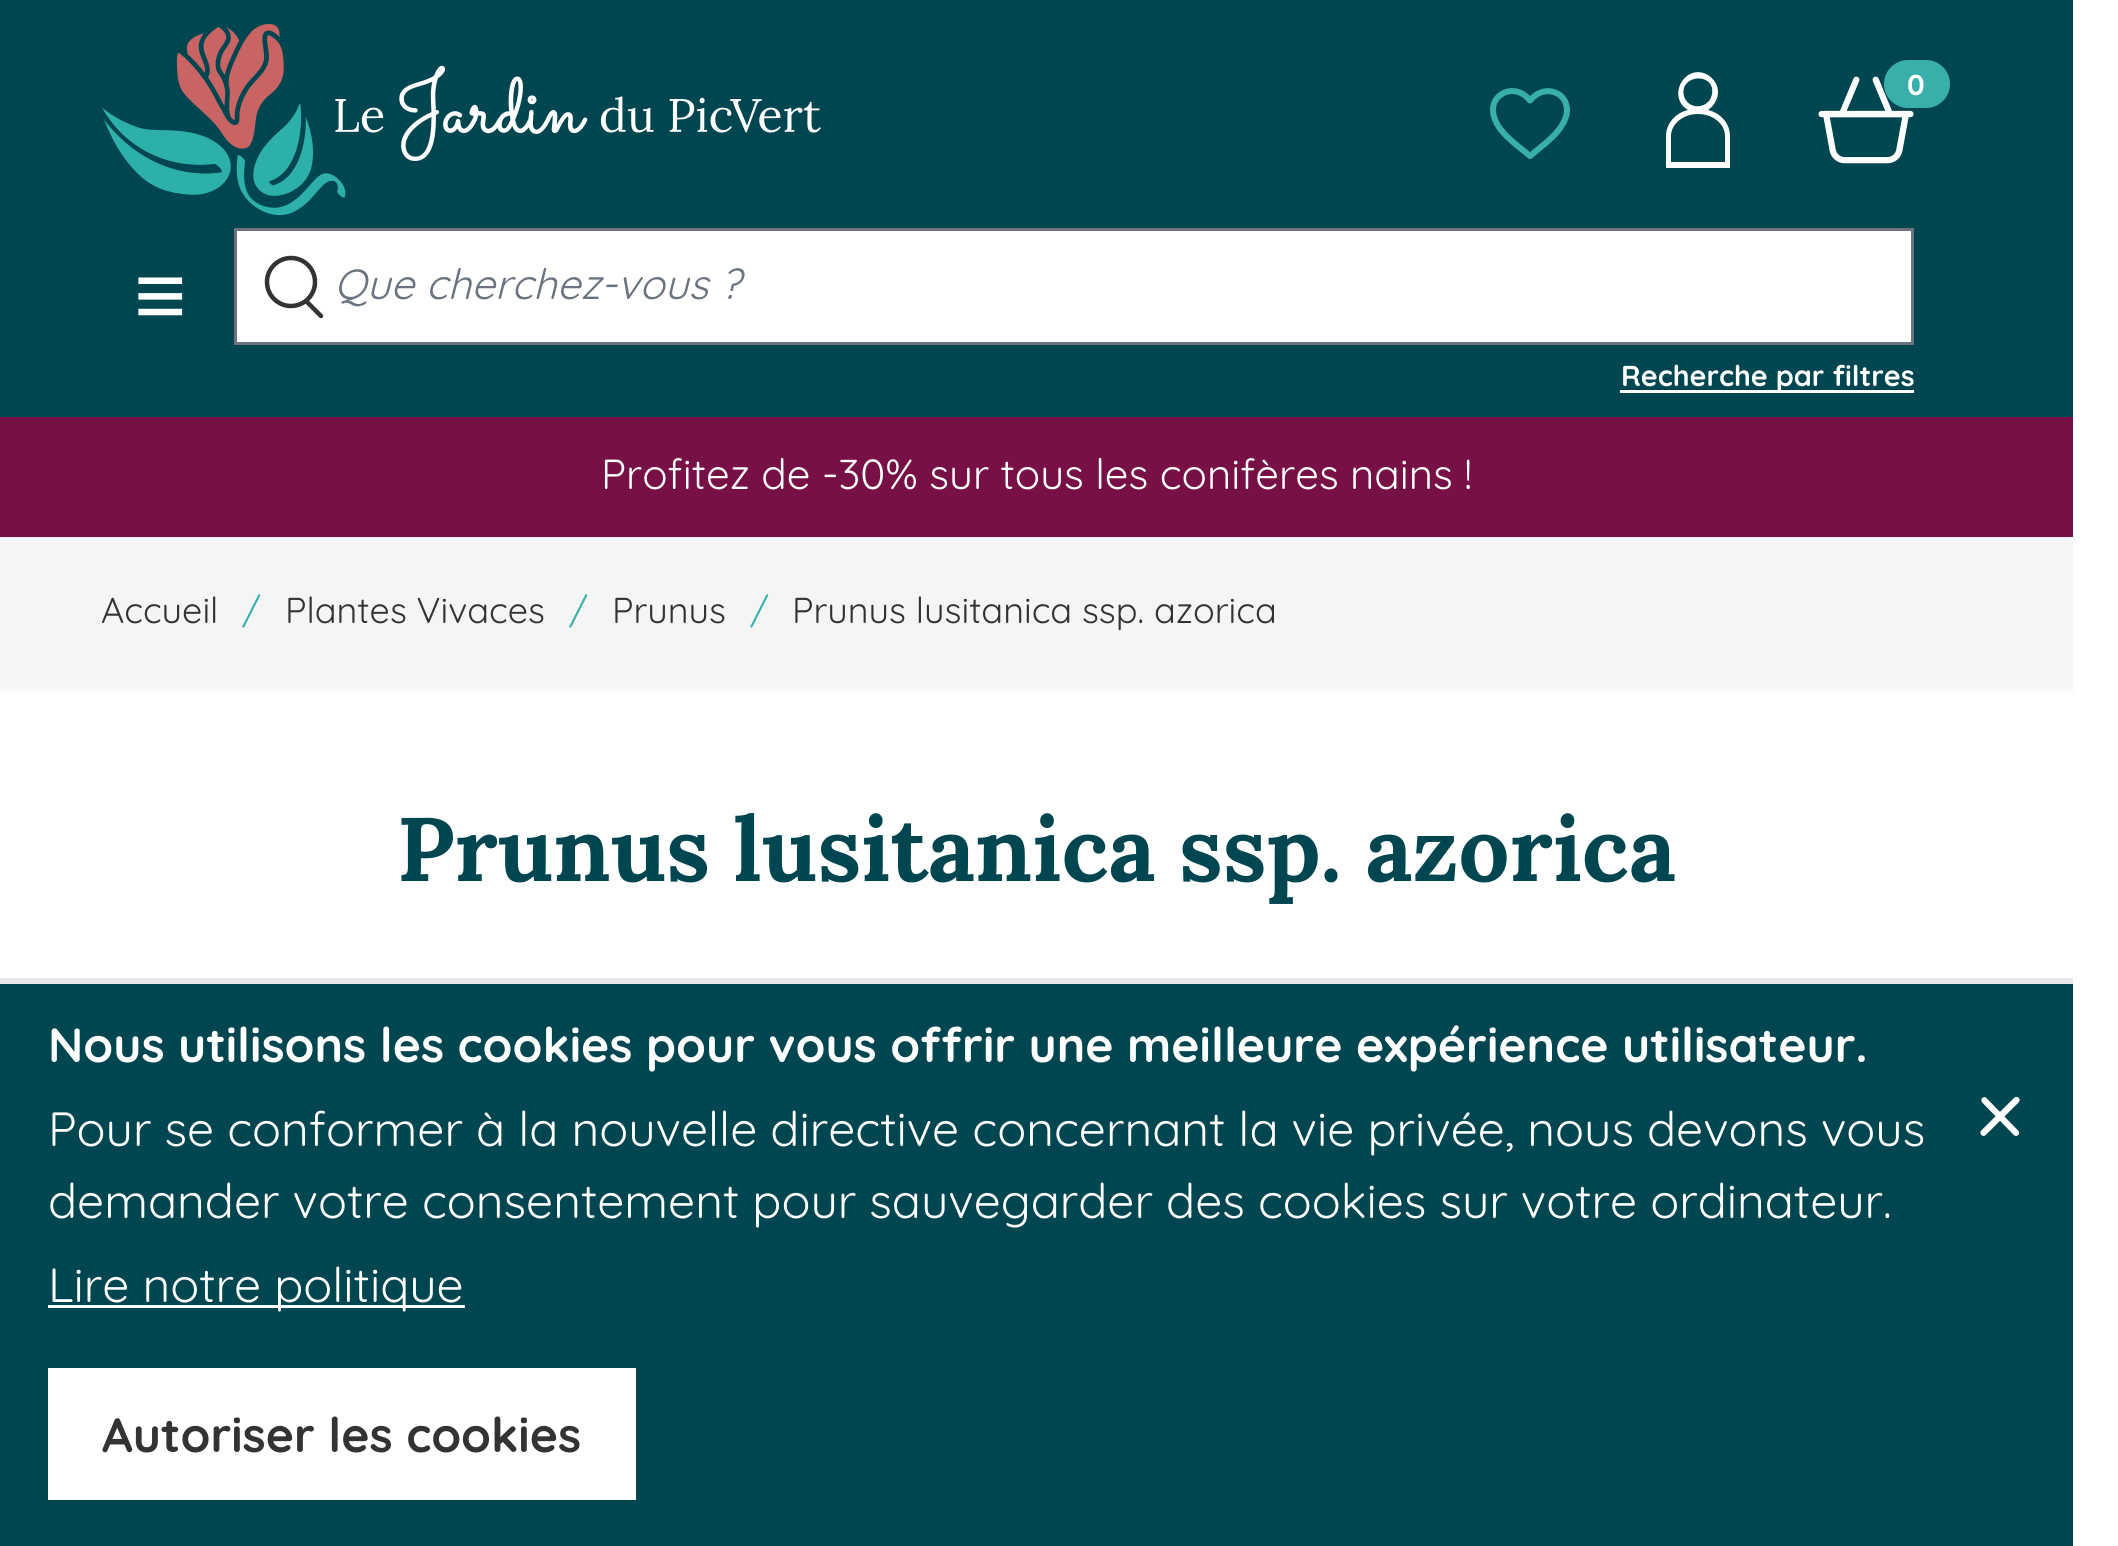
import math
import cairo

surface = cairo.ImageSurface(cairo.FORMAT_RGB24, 2118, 1546)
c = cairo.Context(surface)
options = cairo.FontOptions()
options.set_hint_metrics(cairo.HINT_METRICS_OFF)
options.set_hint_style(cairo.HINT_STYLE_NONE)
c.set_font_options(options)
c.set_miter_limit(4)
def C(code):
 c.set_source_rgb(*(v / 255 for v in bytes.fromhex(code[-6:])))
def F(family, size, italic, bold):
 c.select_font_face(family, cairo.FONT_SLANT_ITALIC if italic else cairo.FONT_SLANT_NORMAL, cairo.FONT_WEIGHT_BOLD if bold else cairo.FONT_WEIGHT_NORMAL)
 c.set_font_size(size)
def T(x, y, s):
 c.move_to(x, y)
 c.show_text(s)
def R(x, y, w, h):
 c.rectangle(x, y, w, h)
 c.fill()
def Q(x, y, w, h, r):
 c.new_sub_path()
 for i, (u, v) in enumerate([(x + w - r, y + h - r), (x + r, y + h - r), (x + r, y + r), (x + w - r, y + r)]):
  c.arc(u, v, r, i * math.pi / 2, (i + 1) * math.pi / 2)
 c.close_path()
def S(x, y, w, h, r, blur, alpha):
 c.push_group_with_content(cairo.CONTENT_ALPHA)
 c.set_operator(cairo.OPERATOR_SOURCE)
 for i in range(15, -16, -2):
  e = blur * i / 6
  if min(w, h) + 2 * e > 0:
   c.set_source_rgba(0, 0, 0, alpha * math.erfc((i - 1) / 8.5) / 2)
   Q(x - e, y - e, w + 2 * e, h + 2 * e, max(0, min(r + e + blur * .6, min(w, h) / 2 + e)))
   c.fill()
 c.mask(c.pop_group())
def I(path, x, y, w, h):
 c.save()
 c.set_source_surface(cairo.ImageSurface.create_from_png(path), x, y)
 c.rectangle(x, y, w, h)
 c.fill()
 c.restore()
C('ffffff')
c.paint()
C('004650')
R(0,0,2073,417)
I('1.png',102,24,719,192)
C('ffffff')
c.new_path()
c.move_to(1708,110)
c.curve_to(1714,106,1718,99,1718,92)
c.curve_to(1718,85,1714,79,1708,75)
c.curve_to(1685,62,1666,97,1688,110)
c.curve_to(1675,113,1666,124,1666,136)
c.line_to(1666,168)
c.line_to(1730,168)
c.line_to(1730,136)
c.curve_to(1730,124,1721,113,1708,110)
c.close_path()
c.move_to(1684,96)
c.curve_to(1679,77,1708,72,1712,88)
c.curve_to(1715,108,1689,113,1684,96)
c.close_path()
c.move_to(1725,162)
c.line_to(1671,162)
c.line_to(1671,136)
c.curve_to(1671,124,1683,114,1698,114)
c.curve_to(1713,114,1725,124,1725,136)
c.close_path()
c.fill()
I('2.png',1818,76,96,88)
C('38afab')
Q(1884,60,66,48,24)
c.fill()
F('Quicksand',28.75,0,1)
C('ffffff')
T(1907,95,'0')
c.new_path()
c.move_to(1493,109.5)
c.curve_to(1493,96,1507.5,87.5,1519.5,92.5)
c.curve_to(1524,94,1527,97,1530,100.5)
c.curve_to(1532.5,98,1534.5,95.5,1537.5,94)
c.curve_to(1548.5,87.5,1564,92.5,1566.5,106)
c.curve_to(1568,112,1566,118,1563,123.5)
c.curve_to(1555.5,137,1541.5,146,1530,156)
c.curve_to(1516,144,1493,129.5,1493,109.5)
c.close_path()
C('38afab')
c.set_line_width(6)
c.set_line_cap(cairo.LINE_CAP_ROUND)
c.set_line_join(cairo.LINE_JOIN_ROUND)
c.stroke()
F('Liberation Sans',90,0,0)
C('ffffff')
T(134,326,'≡')
c.rectangle(235.5,229.5,1677,114)
c.fill_preserve()
C('6b7280')
c.set_line_width(3)
c.set_line_cap(cairo.LINE_CAP_BUTT)
c.set_line_join(cairo.LINE_JOIN_MITER)
c.stroke()
c.arc(291,282,24,0,2 * math.pi)
C('333333')
c.set_line_width(4.5)
c.stroke()
c.new_path()
c.move_to(307,302)
c.line_to(321,316)
c.set_line_cap(cairo.LINE_CAP_ROUND)
c.set_line_join(cairo.LINE_JOIN_ROUND)
c.stroke()
F('Quicksand',42,1,0)
C('6b7280')
T(334,299,'Que cherchez-vous ?')
C('ffffff')
R(1620,390,294,3)
F('Quicksand',28.75,0,1)
T(1621,386,'Recherche par filtres')
C('000000')
S(0,540,2073,150,0,3,.05)
C('ffffff')
R(2073,540,3,150)
C('771045')
R(0,417,2073,120)
F('Quicksand',42,0,0)
C('ffffff')
T(601,489,'Profitez de -30% sur tous les conifères nains !')
C('f5f5f5')
R(0,537,2073,150)
F('Quicksand',36,0,0)
C('333333')
T(101,623,'Accueil')
C('38afab')
T(242,623,'/')
C('333333')
T(285,623,'Plantes Vivaces')
C('38afab')
T(569,623,'/')
C('333333')
T(612,623,'Prunus')
C('38afab')
T(750,623,'/')
C('333333')
T(792,623,'Prunus lusitanica ssp. azorica')
F('Lora',90,0,1)
C('004650')
T(397,881,'Prunus lusitanica ssp. azorica')
R(0,984,2073,562)
C('e5e7eb')
R(0,978,2073,6)
F('Quicksand',48,0,1)
C('ffffff')
T(48,1062,'Nous utilisons les cookies pour vous offrir une meilleure expérience utilisateur.')
F('Quicksand',48,0,0)
T(48,1146,'Pour se conformer à la nouvelle directive concernant la vie privée, nous devons vous')
T(48,1218,'demander votre consentement pour sauvegarder des cookies sur votre ordinateur.')
R(48,1305,417,3)
T(48,1302,'Lire notre politique')
R(48,1368,588,132)
F('Quicksand',48,0,1)
C('333333')
T(102,1452,'Autoriser les cookies')
F('Quicksand',108,0,0)
C('ffffff')
T(1975,1152,'×')
surface.write_to_png('o.png')
